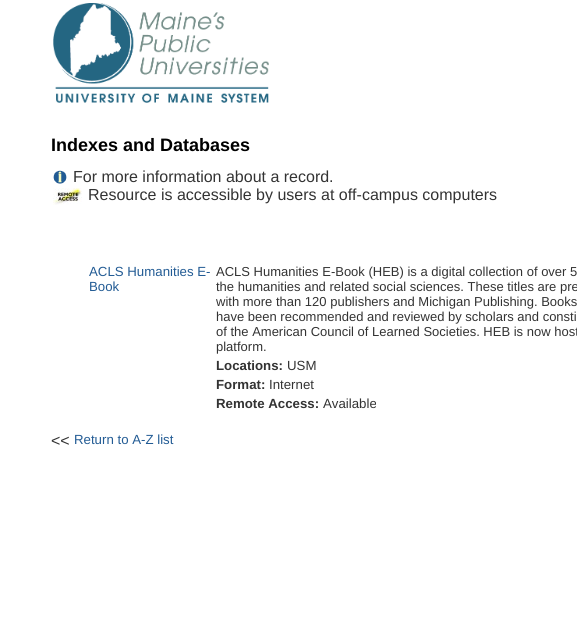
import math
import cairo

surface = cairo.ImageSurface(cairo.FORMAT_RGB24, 577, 633)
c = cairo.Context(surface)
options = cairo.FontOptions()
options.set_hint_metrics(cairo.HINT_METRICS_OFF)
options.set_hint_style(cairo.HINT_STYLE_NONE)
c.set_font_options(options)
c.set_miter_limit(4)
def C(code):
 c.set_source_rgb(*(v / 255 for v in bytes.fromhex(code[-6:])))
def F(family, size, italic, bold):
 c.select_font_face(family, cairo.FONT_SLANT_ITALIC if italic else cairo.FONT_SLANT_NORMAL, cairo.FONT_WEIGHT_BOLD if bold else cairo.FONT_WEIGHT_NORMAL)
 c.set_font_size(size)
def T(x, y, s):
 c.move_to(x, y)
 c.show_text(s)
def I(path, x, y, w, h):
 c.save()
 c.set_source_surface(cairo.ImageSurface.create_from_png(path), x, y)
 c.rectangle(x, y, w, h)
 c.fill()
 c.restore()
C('ffffff')
c.paint()
I('1.png',53,3,216,100)
F('Liberation Sans',18,0,1)
C('000000')
T(51,151,'Indexes and Databases')
I('2.png',53,170,14,14)
F('Liberation Sans',16,0,0)
C('333333')
T(73,182,'For more information about a record.')
I('3.png',53,188,29,17)
T(88,200,'Resource is accessible by users at off-campus computers')
F('Liberation Sans',13.25,0,0)
C('225b94')
T(89,276,'ACLS Humanities E-')
T(89,291,'Book')
F('Liberation Sans',13,0,0)
C('333333')
T(216,276,'ACLS Humanities E-Book (HEB) is a digital collection of over 5')
T(216,291,'the humanities and related social sciences. These titles are pre')
T(216,306,'with more than 120 publishers and Michigan Publishing. Books')
T(216,321,'have been recommended and reviewed by scholars and consti')
T(216,336,'of the American Council of Learned Societies. HEB is now host')
T(216,351,'platform.')
F('Liberation Sans',13.25,0,1)
T(216,370,'Locations:')
F('Liberation Sans',13.25,0,0)
T(287,370,'USM')
F('Liberation Sans',13.25,0,1)
T(216,389,'Format:')
F('Liberation Sans',13.25,0,0)
T(269,389,'Internet')
F('Liberation Sans',13.25,0,1)
T(216,408,'Remote Access:')
F('Liberation Sans',13.25,0,0)
T(323,408,'Available')
F('Liberation Sans',16,0,0)
T(51,446,'<<')
F('Liberation Sans',13.25,0,0)
C('225b94')
T(74,444,'Return to A-Z list')
surface.write_to_png('o.png')
